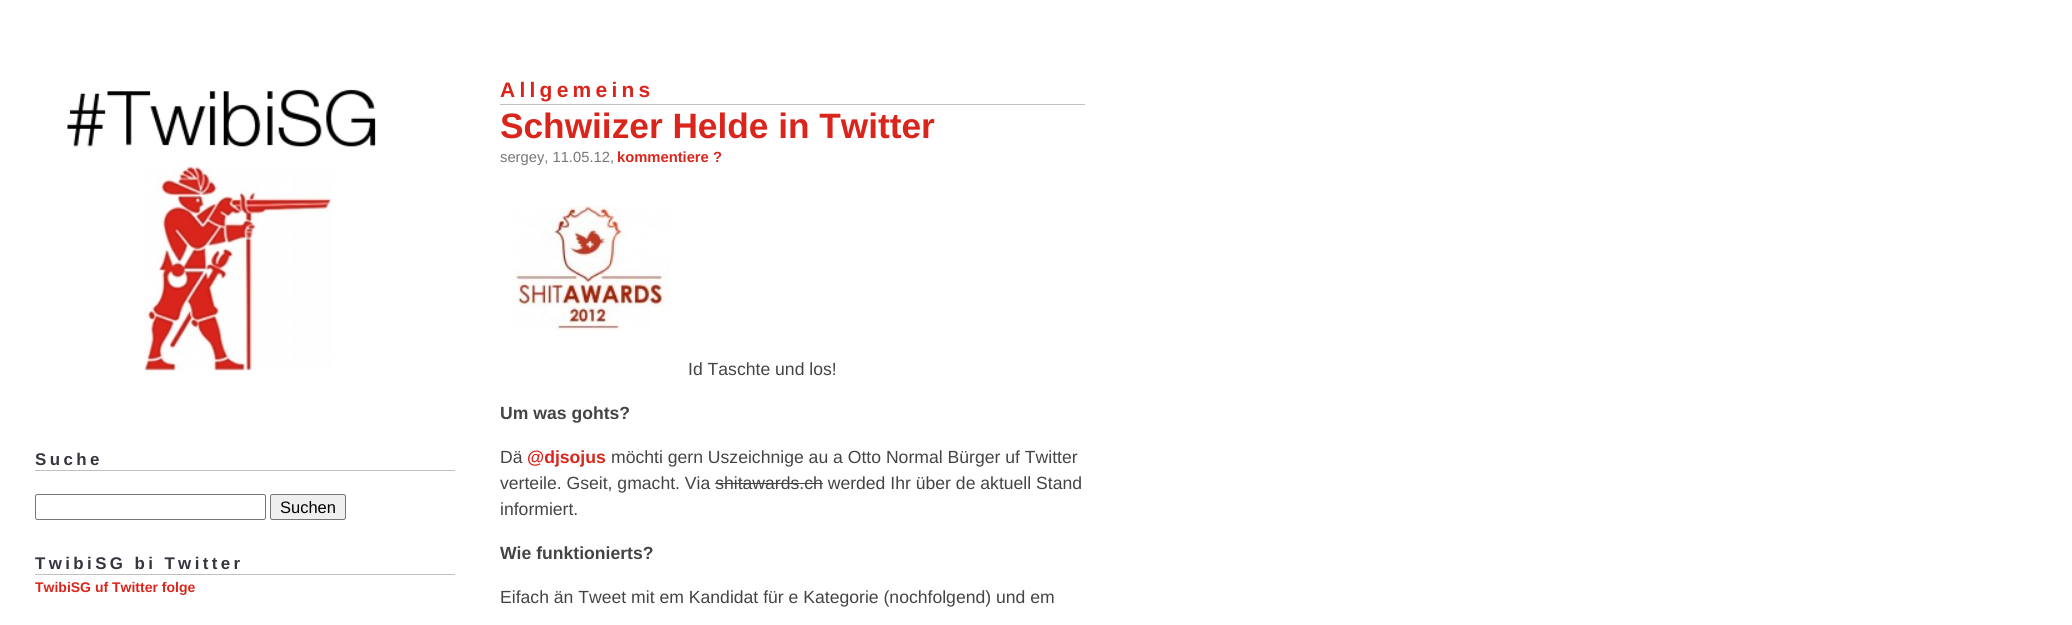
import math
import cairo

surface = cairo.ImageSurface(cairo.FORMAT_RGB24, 2072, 625)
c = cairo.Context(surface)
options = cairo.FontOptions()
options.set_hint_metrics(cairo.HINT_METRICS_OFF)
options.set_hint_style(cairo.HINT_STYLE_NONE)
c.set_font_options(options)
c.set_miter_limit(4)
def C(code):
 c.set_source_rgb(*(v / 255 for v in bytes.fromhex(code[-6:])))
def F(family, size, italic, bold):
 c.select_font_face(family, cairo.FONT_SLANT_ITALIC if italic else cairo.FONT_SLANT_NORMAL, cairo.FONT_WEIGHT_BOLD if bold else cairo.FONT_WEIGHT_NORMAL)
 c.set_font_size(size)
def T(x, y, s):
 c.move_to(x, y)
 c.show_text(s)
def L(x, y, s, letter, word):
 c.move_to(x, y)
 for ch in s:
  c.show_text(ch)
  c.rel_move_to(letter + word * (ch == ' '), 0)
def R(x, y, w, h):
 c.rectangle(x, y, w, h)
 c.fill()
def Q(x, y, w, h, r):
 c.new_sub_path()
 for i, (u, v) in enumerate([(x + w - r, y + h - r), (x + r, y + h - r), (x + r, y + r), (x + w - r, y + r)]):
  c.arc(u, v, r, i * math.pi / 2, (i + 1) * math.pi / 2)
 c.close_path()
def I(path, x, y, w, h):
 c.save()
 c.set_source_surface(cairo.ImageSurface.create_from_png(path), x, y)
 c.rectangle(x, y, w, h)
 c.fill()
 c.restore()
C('ffffff')
c.paint()
I('1.png',67,89,309,282)
C('c0c0c0')
R(35,470,420,1)
F('Liberation Sans',16.9,0,1)
C('34353e')
L(35,465,'Suche',3.4,0)
Q(35.5,494.5,230,25,2)
C('767676')
c.set_line_width(1)
c.stroke()
C('efefef')
Q(270.5,494.5,75,25,2)
c.fill_preserve()
C('767676')
c.stroke()
F('Liberation Sans',16.5,0,0)
C('000000')
T(280,513,'Suchen')
C('c0c0c0')
R(35,574,420,1)
F('Liberation Sans',16.9,0,1)
C('34353e')
L(35,569,'TwibiSG bi Twitter',3.4,0)
F('Liberation Sans',14,0,1)
C('da251c')
T(35,592,'TwibiSG uf Twitter folge')
C('c0c0c0')
R(500,104,585,1)
F('Liberation Sans',21,0,1)
C('da251c')
L(500,97,'Allgemeins',4.25,0)
F('Liberation Sans',35.25,0,1)
T(500,138,'Schwiizer Helde in Twitter')
F('Liberation Sans',14.75,0,0)
C('777777')
T(500,162,'sergey, 11.05.12,')
F('Liberation Sans',14.75,0,1)
C('da251c')
T(617,162,'kommentiere ?')
I('2.png',511,206,159,124)
F('Liberation Sans',17.6,0,0)
C('444444')
T(688,375,'Id Taschte und los!')
F('Liberation Sans',17.6,0,1)
T(500,419,'Um was gohts?')
F('Liberation Sans',17.6,0,0)
T(500,463,'Dä')
F('Liberation Sans',17.6,0,1)
C('da251c')
T(527,463,'@djsojus')
F('Liberation Sans',17.6,0,0)
C('444444')
T(611,463,'möchti gern Uszeichnige au a Otto Normal Bürger uf Twitter')
T(500,489,'verteile. Gseit, gmacht. Via shitawards.ch werded Ihr über de aktuell Stand')
R(715,483,108,1)
T(500,515,'informiert.')
F('Liberation Sans',17.6,0,1)
T(500,559,'Wie funktionierts?')
F('Liberation Sans',17.6,0,0)
T(500,603,'Eifach än Tweet mit em Kandidat für e Kategorie (nochfolgend) und em')
surface.write_to_png('o.png')
